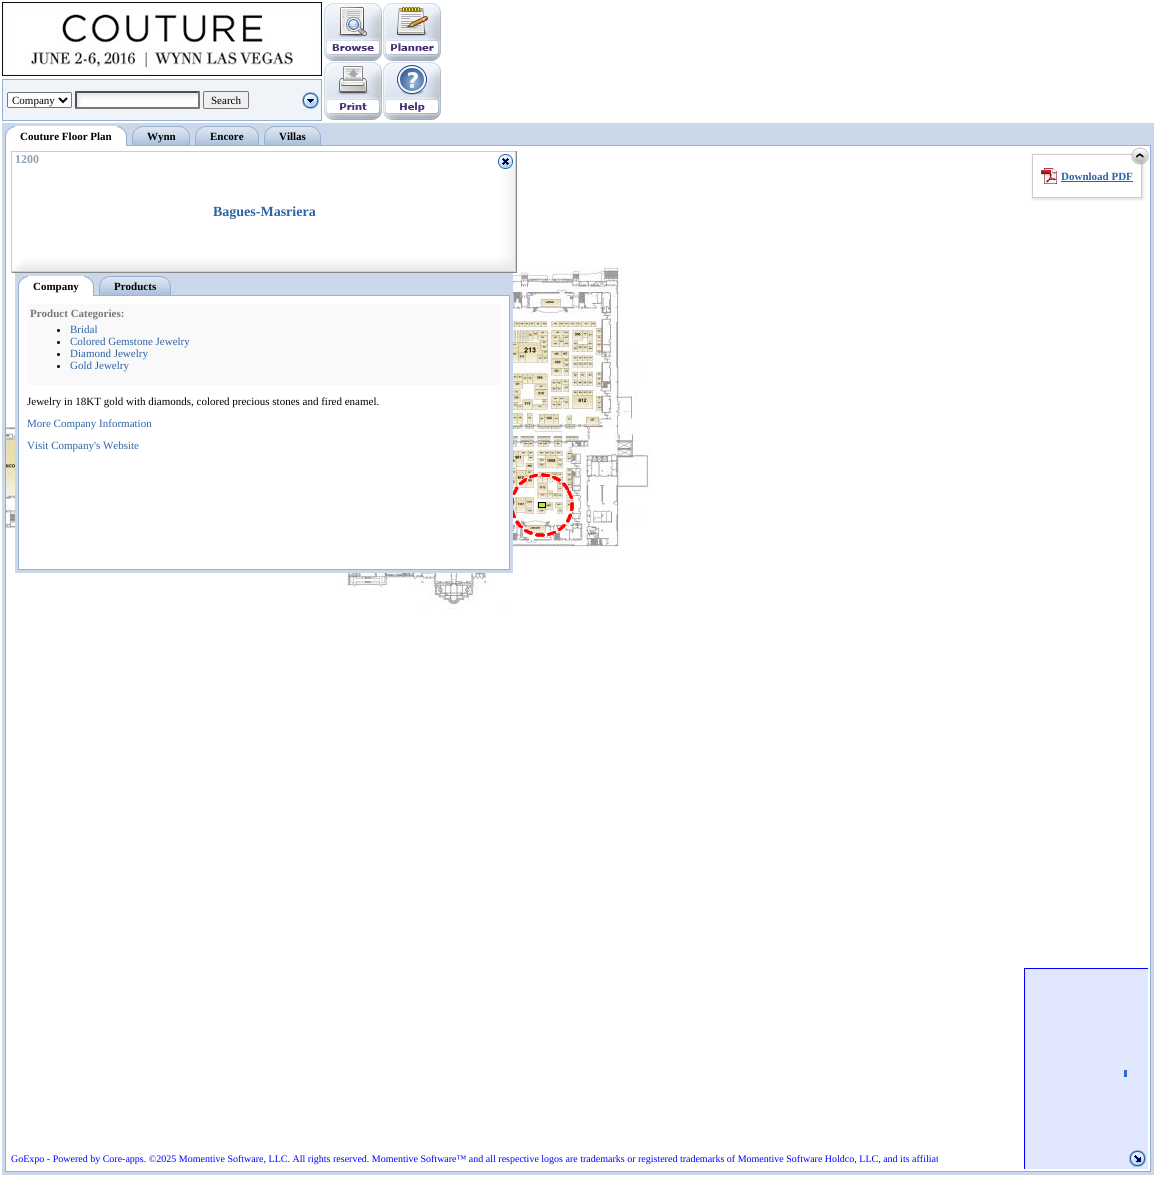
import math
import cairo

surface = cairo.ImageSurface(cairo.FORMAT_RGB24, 1158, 1177)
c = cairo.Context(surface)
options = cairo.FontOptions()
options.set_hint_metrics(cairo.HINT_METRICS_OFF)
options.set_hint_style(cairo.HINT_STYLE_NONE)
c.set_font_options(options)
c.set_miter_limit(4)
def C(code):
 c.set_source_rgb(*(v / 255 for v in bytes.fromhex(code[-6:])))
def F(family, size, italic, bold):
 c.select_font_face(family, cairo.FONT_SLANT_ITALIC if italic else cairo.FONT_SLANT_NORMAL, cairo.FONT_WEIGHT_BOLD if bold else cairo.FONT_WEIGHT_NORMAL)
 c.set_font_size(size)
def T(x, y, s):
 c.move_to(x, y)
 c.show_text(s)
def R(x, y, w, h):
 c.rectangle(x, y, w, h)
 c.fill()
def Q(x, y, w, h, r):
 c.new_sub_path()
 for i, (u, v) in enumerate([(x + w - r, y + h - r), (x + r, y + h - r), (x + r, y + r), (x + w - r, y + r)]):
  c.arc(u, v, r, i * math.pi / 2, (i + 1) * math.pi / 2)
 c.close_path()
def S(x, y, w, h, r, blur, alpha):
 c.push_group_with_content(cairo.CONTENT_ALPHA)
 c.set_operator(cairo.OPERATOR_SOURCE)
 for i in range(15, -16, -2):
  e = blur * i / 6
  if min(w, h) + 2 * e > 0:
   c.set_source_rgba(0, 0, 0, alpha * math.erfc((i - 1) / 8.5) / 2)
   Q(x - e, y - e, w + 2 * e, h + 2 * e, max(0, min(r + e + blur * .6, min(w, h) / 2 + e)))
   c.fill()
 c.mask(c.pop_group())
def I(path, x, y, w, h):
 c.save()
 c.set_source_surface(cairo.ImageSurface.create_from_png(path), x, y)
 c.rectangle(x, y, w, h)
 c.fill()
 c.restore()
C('ffffff')
c.paint()
I('1.png',2,2,320,74)
I('2.png',324,3,58,58)
I('3.png',383,3,58,58)
I('4.png',324,62,58,58)
I('5.png',383,62,58,58)
C('f0f4f9')
c.rectangle(2.5,79.5,319,41)
c.fill_preserve()
C('95b0d4')
c.set_line_width(1)
c.stroke()
C('ffffff')
Q(7.5,92.5,64,15,1.5)
c.fill_preserve()
C('767676')
c.stroke()
c.new_path()
c.move_to(59,98)
c.line_to(63,102)
c.line_to(67,98)
C('000000')
c.set_line_width(2)
c.stroke()
F('Liberation Serif',11,0,0)
T(12,104,'Company')
I('6.png',77,93,123,16)
C('4f4f4f')
c.new_path()
c.move_to(75,91)
c.line_to(200,91)
c.line_to(198,93)
c.line_to(77,93)
c.close_path()
c.fill()
C('767676')
c.new_path()
c.move_to(200,91)
c.line_to(200,109)
c.line_to(198,107)
c.line_to(198,93)
c.close_path()
c.fill()
c.new_path()
c.move_to(200,109)
c.line_to(75,109)
c.line_to(77,107)
c.line_to(198,107)
c.close_path()
c.fill()
C('4f4f4f')
c.new_path()
c.move_to(75,109)
c.line_to(75,91)
c.line_to(77,93)
c.line_to(77,107)
c.close_path()
c.fill()
C('efefef')
Q(203.5,91.5,45,17,1.5)
c.fill_preserve()
C('767676')
c.set_line_width(1)
c.stroke()
C('000000')
T(211,104,'Search')
I('7.png',302,92,17,17)
C('cbd8ea')
R(2,123,1152,1052)
C('99b3d6')
R(127,145,1024,1)
I('8.png',5,126,10,20)
C('ffffff')
R(15,126,102,20)
F('Liberation Serif',11,0,1)
C('000000')
T(20,140,'Couture Floor Plan')
I('9.png',117,126,10,20)
I('10.png',132,126,10,19)
I('11.png',142,126,38,19)
T(147,140,'Wynn')
I('12.png',180,126,10,19)
I('10.png',195,126,10,19)
I('13.png',205,126,44,19)
T(210,140,'Encore')
I('12.png',249,126,10,19)
I('10.png',264,126,10,19)
I('14.png',274,126,37,19)
T(279,140,'Villas')
I('12.png',311,126,10,19)
C('ffffff')
R(6,146,1144,1025)
C('e1e8fe')
R(1025,969,123,200)
C('95b0d4')
R(1150,146,1,1026)
R(5,1171,1146,1)
R(5,146,1,1026)
I('20.png',513,266,85,80)
I('15.png',12,152,504,120)
C('cccccc')
R(11,151,506,1)
C('888888')
R(516,151,1,122)
R(11,272,506,1)
C('cccccc')
R(11,151,1,122)
F('Liberation Serif',12,0,1)
C('909eb1')
T(15,163,'1200')
I('16.png',498,154,15,15)
F('Liberation Serif',14,0,1)
C('2d62a5')
T(213,216,'Bagues-Masriera')
I('26.png',398,546,200,63)
C('cbd8ea')
R(15,273,498,300)
C('99b3d6')
R(94,295,416,1)
I('8.png',18,276,10,20)
C('ffffff')
R(28,276,56,20)
F('Liberation Serif',11,0,1)
C('000000')
T(33,290,'Company')
I('9.png',84,276,10,20)
I('10.png',99,276,10,19)
I('17.png',109,276,52,19)
T(114,290,'Products')
I('12.png',161,276,10,19)
C('ffffff')
R(19,296,490,273)
C('95b0d4')
R(509,296,1,274)
R(18,569,492,1)
R(18,296,1,274)
C('f9f9f9')
R(27,304,474,81)
C('777777')
T(30,317,'Product Categories:')
C('000000')
c.new_path()
c.arc(58.5,330.5,1.5,0,2 * math.pi)
c.fill()
F('Liberation Serif',11,0,0)
C('2d62a5')
T(70,333,'Bridal')
C('000000')
c.new_path()
c.arc(58.5,342.5,1.5,0,2 * math.pi)
c.fill()
C('2d62a5')
T(70,345,'Colored Gemstone Jewelry')
C('000000')
c.new_path()
c.arc(58.5,354.5,1.5,0,2 * math.pi)
c.fill()
C('2d62a5')
T(70,357,'Diamond Jewelry')
C('000000')
c.new_path()
c.arc(58.5,366.5,1.5,0,2 * math.pi)
c.fill()
C('2d62a5')
T(70,369,'Gold Jewelry')
C('000000')
T(27,405,'Jewelry in 18KT gold with diamonds, colored precious stones and fired enamel.')
C('2d62a5')
T(27,427,'More Company Information')
T(27,449,'Visit Company\'s Website')
c.save()
c.set_fill_rule(cairo.FILL_RULE_EVEN_ODD)
c.new_path()
c.move_to(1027,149)
c.line_to(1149,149)
c.line_to(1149,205)
c.line_to(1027,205)
c.close_path()
c.move_to(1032,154)
c.line_to(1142,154)
c.line_to(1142,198)
c.line_to(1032,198)
c.close_path()
c.clip()
C('d6d6d6')
S(1033,155,110,44,0,1.5,1)
c.restore()
c.rectangle(1032.5,154.5,109,43)
C('cccccc')
c.stroke()
I('18.png',1131,147,18,18)
I('19.png',1041,168,16,16)
F('Liberation Serif',11,0,1)
C('2d62a5')
T(1061,180,'Download PDF')
R(1061,181,72,1)
F('Liberation Serif',10,0,0)
C('0000ff')
T(11,1162,'GoExpo - Powered by Core-apps. ©2025 Momentive Software, LLC. All rights reserved. Momentive Software™ and all respective logos are trademarks or registered trademarks of Momentive Software Holdco, LLC, and its affiliat')
C('ffffff')
R(938,1157,1,5)
C('3069d1')
R(1124,1070,3,7)
c.save()
c.rectangle(938,959,210,210)
c.clip()
c.rectangle(1024.5,968.5,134,201)
C('0000ff')
c.stroke()
c.restore()
I('21.png',598,266,24,80)
I('22.png',6,346,9,184)
I('23.png',513,346,85,200)
I('24.png',598,346,55,200)
C('b5ec31')
c.rectangle(538.5,502.5,7,5)
c.fill_preserve()
C('000000')
c.stroke()
I('25.png',513,473,61,64)
I('27.png',598,546,20,2)
I('28.png',342,573,56,19)
I('29.png',1129,1150,17,17)
surface.write_to_png('o.png')
